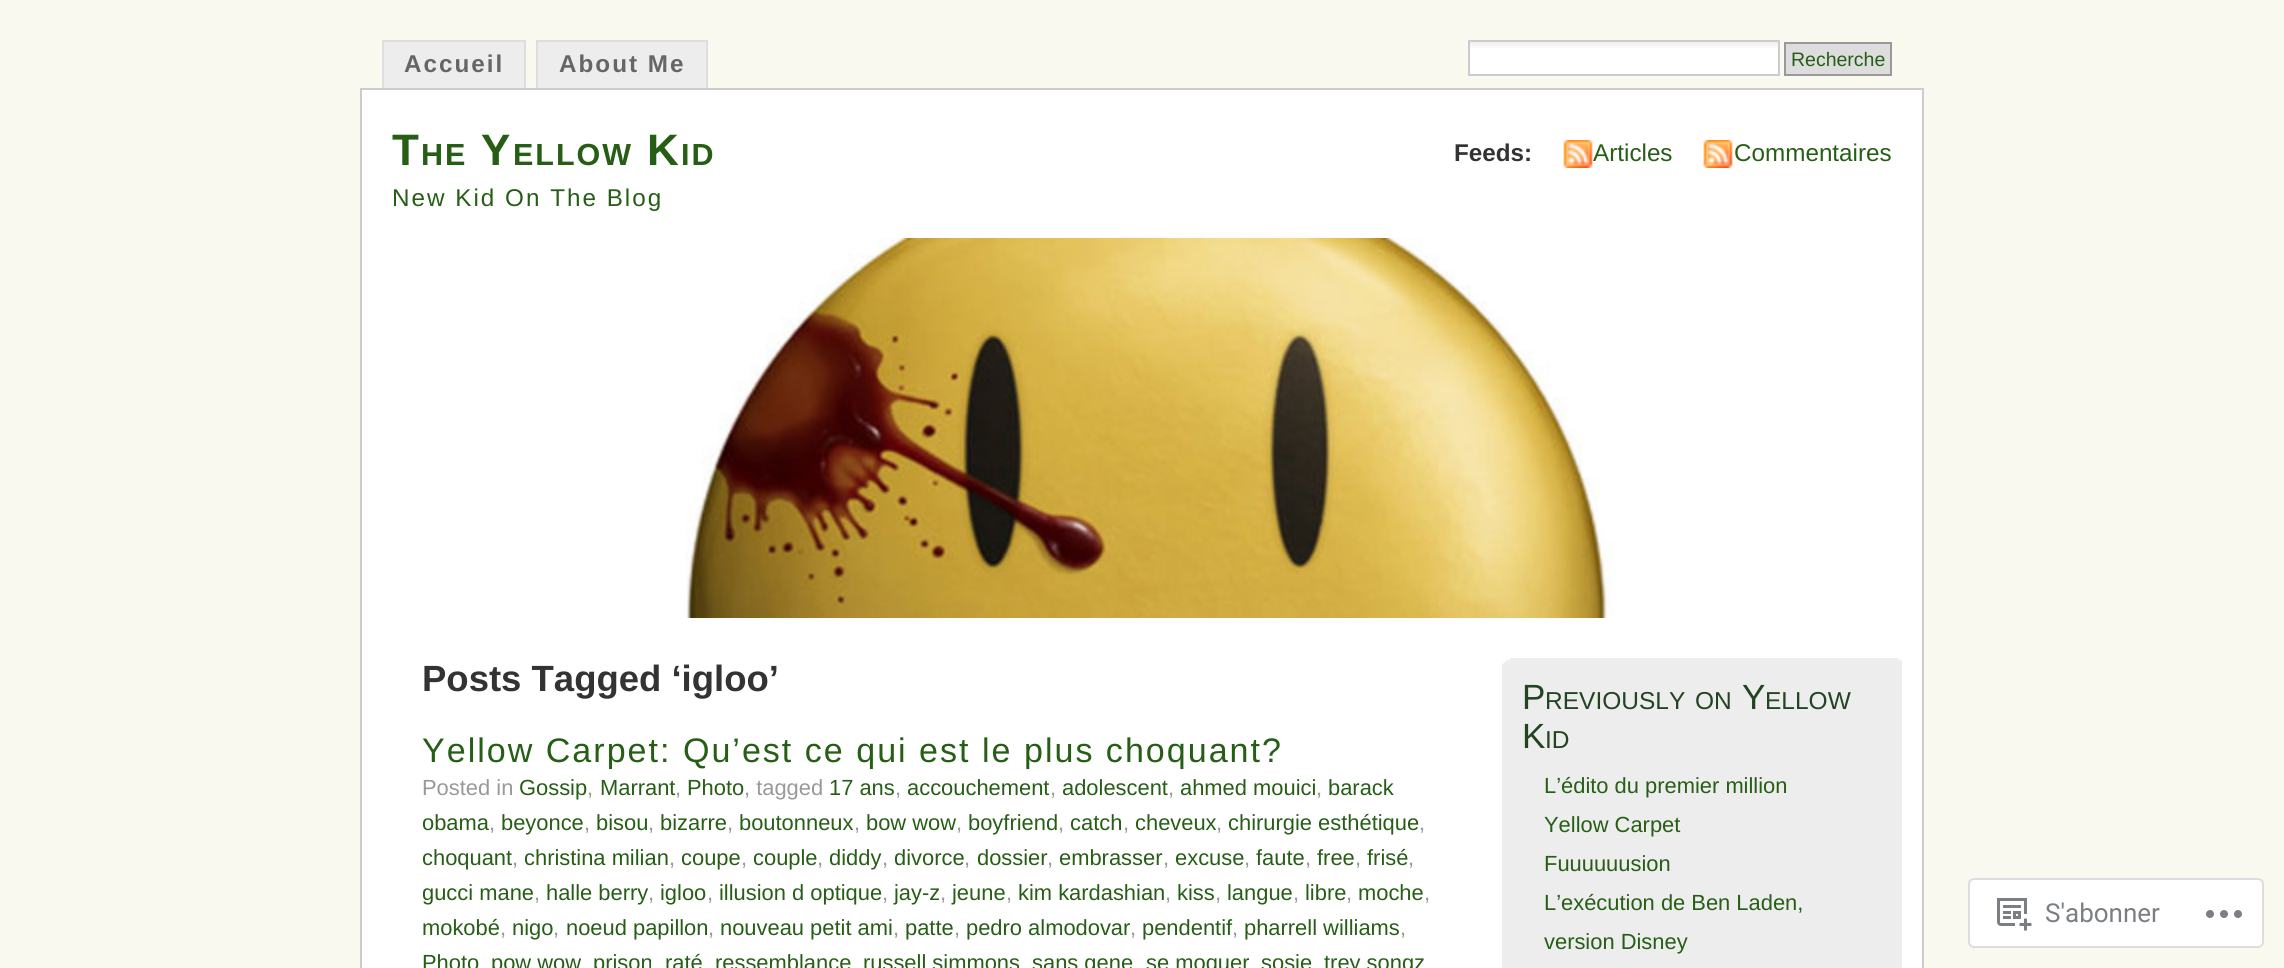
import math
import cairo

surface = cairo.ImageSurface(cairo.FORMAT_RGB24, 2284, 968)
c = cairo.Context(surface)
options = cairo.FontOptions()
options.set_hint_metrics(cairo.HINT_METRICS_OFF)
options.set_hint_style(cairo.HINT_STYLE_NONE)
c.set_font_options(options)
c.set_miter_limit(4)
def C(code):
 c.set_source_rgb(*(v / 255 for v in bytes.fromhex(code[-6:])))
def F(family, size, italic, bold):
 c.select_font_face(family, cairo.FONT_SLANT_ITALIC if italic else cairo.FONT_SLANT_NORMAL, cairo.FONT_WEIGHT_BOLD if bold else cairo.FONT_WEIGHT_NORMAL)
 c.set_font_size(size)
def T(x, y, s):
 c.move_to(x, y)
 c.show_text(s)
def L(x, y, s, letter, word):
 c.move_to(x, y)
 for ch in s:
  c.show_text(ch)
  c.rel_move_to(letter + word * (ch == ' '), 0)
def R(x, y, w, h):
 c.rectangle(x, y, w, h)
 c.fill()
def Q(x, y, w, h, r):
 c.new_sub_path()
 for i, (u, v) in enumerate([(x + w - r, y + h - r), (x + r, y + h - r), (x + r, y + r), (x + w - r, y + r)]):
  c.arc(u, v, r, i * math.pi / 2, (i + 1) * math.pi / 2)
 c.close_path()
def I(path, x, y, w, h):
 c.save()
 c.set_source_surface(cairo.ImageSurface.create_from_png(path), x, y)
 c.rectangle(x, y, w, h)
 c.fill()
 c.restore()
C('f9f9f0')
c.paint()
C('ededed')
R(384,42,140,46)
C('dedede')
R(382,40,144,2)
R(524,40,2,48)
R(382,40,2,48)
F('Liberation Sans',24.25,0,1)
C('666666')
L(404,72,'Accueil',2,0)
C('ededed')
R(538,42,168,46)
C('dedede')
R(536,40,172,2)
R(706,40,2,48)
R(536,40,2,48)
C('666666')
L(559,72,'About Me',2,0)
C('ffffff')
R(1470,48,308,26)
I('1.png',1470,42,308,6)
c.rectangle(1469,41,310,34)
C('cccccc')
c.stroke()
C('dddddd')
c.rectangle(1785,43,106,32)
c.fill_preserve()
C('999999')
c.stroke()
F('Liberation Sans',19.5,0,0)
C('265e15')
T(1791,66,'Recherche')
C('ffffff')
c.rectangle(361,89,1562,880)
c.fill_preserve()
C('cccccc')
c.stroke()
F('Liberation Sans',44,0,1)
C('265e15')
L(392,165,'T',2,0)
F('Liberation Sans',30.5,0,1)
L(421,165,'HE',2,0)
F('Liberation Sans',44,0,1)
L(481,165,'Y',2,0)
F('Liberation Sans',30.5,0,1)
L(513,165,'ELLOW',2,0)
F('Liberation Sans',44,0,1)
L(647,165,'K',2,0)
F('Liberation Sans',30.5,0,1)
L(681,165,'ID',2,0)
F('Liberation Sans',24.25,0,0)
L(392,206,'New Kid On The Blog',2,0)
F('Liberation Sans',24.25,0,1)
C('333333')
T(1454,161,'Feeds:')
I('2.png',1563,140,30,28)
F('Liberation Sans',24.25,0,0)
C('265e15')
T(1593,161,'Articles')
I('2.png',1703,140,30,28)
T(1734,161,'Commentaires')
I('3.png',686,238,928,380)
F('Liberation Sans',36.5,0,1)
C('333333')
T(422,691,'Posts Tagged ‘igloo’')
F('Liberation Sans',34.05,0,0)
C('265e15')
L(422,762,'Yellow Carpet: Qu’est ce qui est le plus choquant?',2,0)
F('Liberation Sans',21.9,0,0)
C('999999')
T(422,795,'Posted in')
C('265e15')
T(519,795,'Gossip')
C('999999')
T(587,795,',')
C('265e15')
T(600,795,'Marrant')
C('999999')
T(675,795,',')
C('265e15')
T(687,795,'Photo')
C('999999')
T(744,795,', tagged')
C('265e15')
T(829,795,'17 ans')
C('999999')
T(895,795,',')
C('265e15')
T(907,795,'accouchement')
C('999999')
T(1050,795,',')
C('265e15')
T(1062,795,'adolescent')
C('999999')
T(1168,795,',')
C('265e15')
T(1180,795,'ahmed mouici')
C('999999')
T(1316,795,',')
C('265e15')
T(1328,795,'barack')
T(422,830,'obama')
C('999999')
T(489,830,',')
C('265e15')
T(501,830,'beyonce')
C('999999')
T(584,830,',')
C('265e15')
T(596,830,'bisou')
C('999999')
T(648,830,',')
C('265e15')
T(660,830,'bizarre')
C('999999')
T(727,830,',')
C('265e15')
T(739,830,'boutonneux')
C('999999')
T(854,830,',')
C('265e15')
T(866,830,'bow wow')
C('999999')
T(956,830,',')
C('265e15')
T(968,830,'boyfriend')
C('999999')
T(1058,830,',')
C('265e15')
T(1070,830,'catch')
C('999999')
T(1123,830,',')
C('265e15')
T(1135,830,'cheveux')
C('999999')
T(1216,830,',')
C('265e15')
T(1228,830,'chirurgie esthétique')
C('999999')
T(1419,830,',')
C('265e15')
T(422,865,'choquant')
C('999999')
T(512,865,',')
C('265e15')
T(524,865,'christina milian')
C('999999')
T(669,865,',')
C('265e15')
T(681,865,'coupe')
C('999999')
T(741,865,',')
C('265e15')
T(753,865,'couple')
C('999999')
T(817,865,',')
C('265e15')
T(829,865,'diddy')
C('999999')
T(882,865,',')
C('265e15')
T(894,865,'divorce')
C('999999')
T(964,865,',')
C('265e15')
T(977,865,'dossier')
C('999999')
T(1047,865,',')
C('265e15')
T(1059,865,'embrasser')
C('999999')
T(1163,865,',')
C('265e15')
T(1175,865,'excuse')
C('999999')
T(1244,865,',')
C('265e15')
T(1256,865,'faute')
C('999999')
T(1305,865,',')
C('265e15')
T(1317,865,'free')
C('999999')
T(1355,865,',')
C('265e15')
T(1367,865,'frisé')
C('999999')
T(1408,865,',')
C('265e15')
T(422,900,'gucci mane')
C('999999')
T(534,900,',')
C('265e15')
T(546,900,'halle berry')
C('999999')
T(648,900,',')
C('265e15')
T(660,900,'igloo')
C('999999')
T(707,900,',')
C('265e15')
T(719,900,'illusion d optique')
C('999999')
T(882,900,',')
C('265e15')
T(894,900,'jay-z')
C('999999')
T(940,900,',')
C('265e15')
T(952,900,'jeune')
C('999999')
T(1006,900,',')
C('265e15')
T(1018,900,'kim kardashian')
C('999999')
T(1165,900,',')
C('265e15')
T(1177,900,'kiss')
C('999999')
T(1215,900,',')
C('265e15')
T(1227,900,'langue')
C('999999')
T(1293,900,',')
C('265e15')
T(1305,900,'libre')
C('999999')
T(1346,900,',')
C('265e15')
T(1358,900,'moche')
C('999999')
T(1424,900,',')
C('265e15')
T(422,935,'mokobé')
C('999999')
T(500,935,',')
C('265e15')
T(512,935,'nigo')
C('999999')
T(553,935,',')
C('265e15')
T(566,935,'noeud papillon')
C('999999')
T(708,935,',')
C('265e15')
T(720,935,'nouveau petit ami')
C('999999')
T(893,935,',')
C('265e15')
T(905,935,'patte')
C('999999')
T(954,935,',')
C('265e15')
T(966,935,'pedro almodovar')
C('999999')
T(1130,935,',')
C('265e15')
T(1142,935,'pendentif')
C('999999')
T(1232,935,',')
C('265e15')
T(1244,935,'pharrell williams')
C('999999')
T(1400,935,',')
C('265e15')
T(422,970,'Photo')
T(491,970,'pow wow')
T(593,970,'prison')
T(665,970,'raté')
T(715,970,'ressemblance')
T(863,970,'russell simmons')
T(1032,970,'sans gene')
T(1146,970,'se moquer')
T(1261,970,'sosie')
T(1324,970,'trey songz')
C('ededed')
R(1502,665,400,303)
I('4.png',1502,658,400,7)
F('Liberation Sans',35,0,0)
C('224422')
T(1522,709,'P')
F('Liberation Sans',24.5,0,0)
T(1545,709,'REVIOUSLY')
T(1695,709,'ON')
F('Liberation Sans',35,0,0)
T(1742,709,'Y')
F('Liberation Sans',24.5,0,0)
T(1765,709,'ELLOW')
F('Liberation Sans',35,0,0)
T(1522,748,'K')
F('Liberation Sans',24.5,0,0)
T(1545,748,'ID')
F('Liberation Sans',21.9,0,0)
C('265e15')
T(1544,793,'L’édito du premier million')
T(1544,832,'Yellow Carpet')
T(1544,871,'Fuuuuuusion')
T(1544,910,'L’exécution de Ben Laden,')
T(1544,949,'version Disney')
C('ffffff')
Q(1969,879,294,68,5)
c.fill_preserve()
C('ddddde')
c.stroke()
I('5.png',1997,898,35,33)
F('Roboto',26,0,0)
C('7b7f84')
T(2045,922,'S\'abonner')
I('6.png',2206,910,36,8)
surface.write_to_png('o.png')
